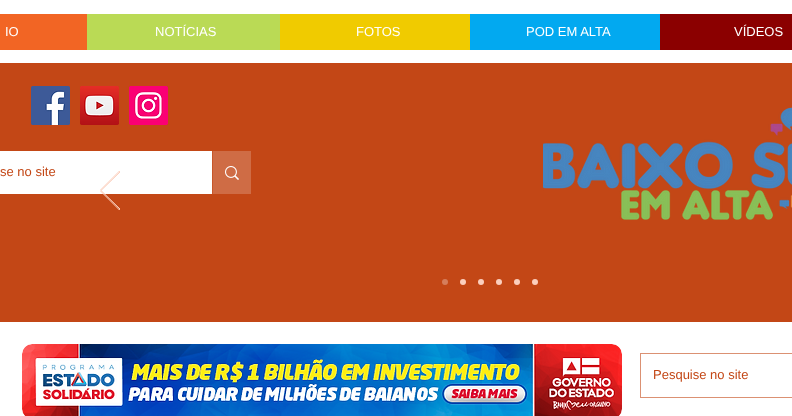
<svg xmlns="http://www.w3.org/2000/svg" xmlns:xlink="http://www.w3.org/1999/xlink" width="792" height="416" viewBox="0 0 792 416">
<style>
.cls-1{font:13px Liberation Sans;fill:#ffffff}
.cls-2{font:13px Liberation Sans;fill:#c34716}
</style>
<defs>
<clipPath id="clip1"><rect x="100" y="171" width="20" height="40"/></clipPath>
</defs>
<rect width="100%" height="100%" fill="#ffffff"/>
<rect fill="#f26524" x="0" y="14" width="87" height="36"/>
<rect fill="#bada55" x="87" y="14" width="193" height="36"/>
<rect fill="#f0cb00" x="280" y="14" width="190" height="36"/>
<rect fill="#02a9f0" x="470" y="14" width="190" height="36"/>
<rect fill="#8b0000" x="660" y="14" width="132" height="36"/>
<rect fill="#c34716" x="0" y="63" width="792" height="259"/>
<rect fill="#ffffff" x="0" y="151" width="212" height="43"/>
<rect fill="#cf6c45" x="213" y="151" width="38" height="43"/>
<rect fill="#c85629" x="212" y="151" width="1" height="43"/>
<image xlink:href="image0.png" x="225" y="166" width="14" height="14"/>
<image xlink:href="image1.png" x="31" y="86" width="39" height="39"/>
<image xlink:href="image2.png" x="80" y="86" width="39" height="39"/>
<image xlink:href="image3.png" x="129" y="86" width="39" height="39"/>
<image xlink:href="image4.png" x="543" y="107" width="249" height="113"/>
<g clip-path="url(#clip1)">
<path fill="none" stroke="#fbcfbd" d="M119.5 210L100 190.5L119.5 171L120 172L101 190.5L120 209Z"/>
</g>
<circle fill="#d57e5c" cx="445" cy="282" r="3"/>
<circle fill="#fbcfbd" cx="463" cy="282" r="3"/>
<circle fill="#fbcfbd" cx="481" cy="282" r="3"/>
<circle fill="#fbcfbd" cx="499" cy="282" r="3"/>
<circle fill="#fbcfbd" cx="517" cy="282" r="3"/>
<circle fill="#fbcfbd" cx="535" cy="282" r="3"/>
<image xlink:href="image5.png" x="22" y="344" width="600" height="72"/>
<rect fill="none" stroke="#db9173" x="640.5" y="353.5" width="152" height="44"/>
<text class="cls-1" x="5" y="36">IO</text>
<text class="cls-1" x="155" y="36">NOTÍCIAS</text>
<text class="cls-1" x="356" y="36">FOTOS</text>
<text class="cls-1" x="526" y="36">POD EM ALTA</text>
<text class="cls-1" x="734" y="36">VÍDEOS</text>
<text class="cls-2" x="0" y="176">se no site</text>
<text class="cls-2" x="653" y="379">Pesquise no site</text>
</svg>
